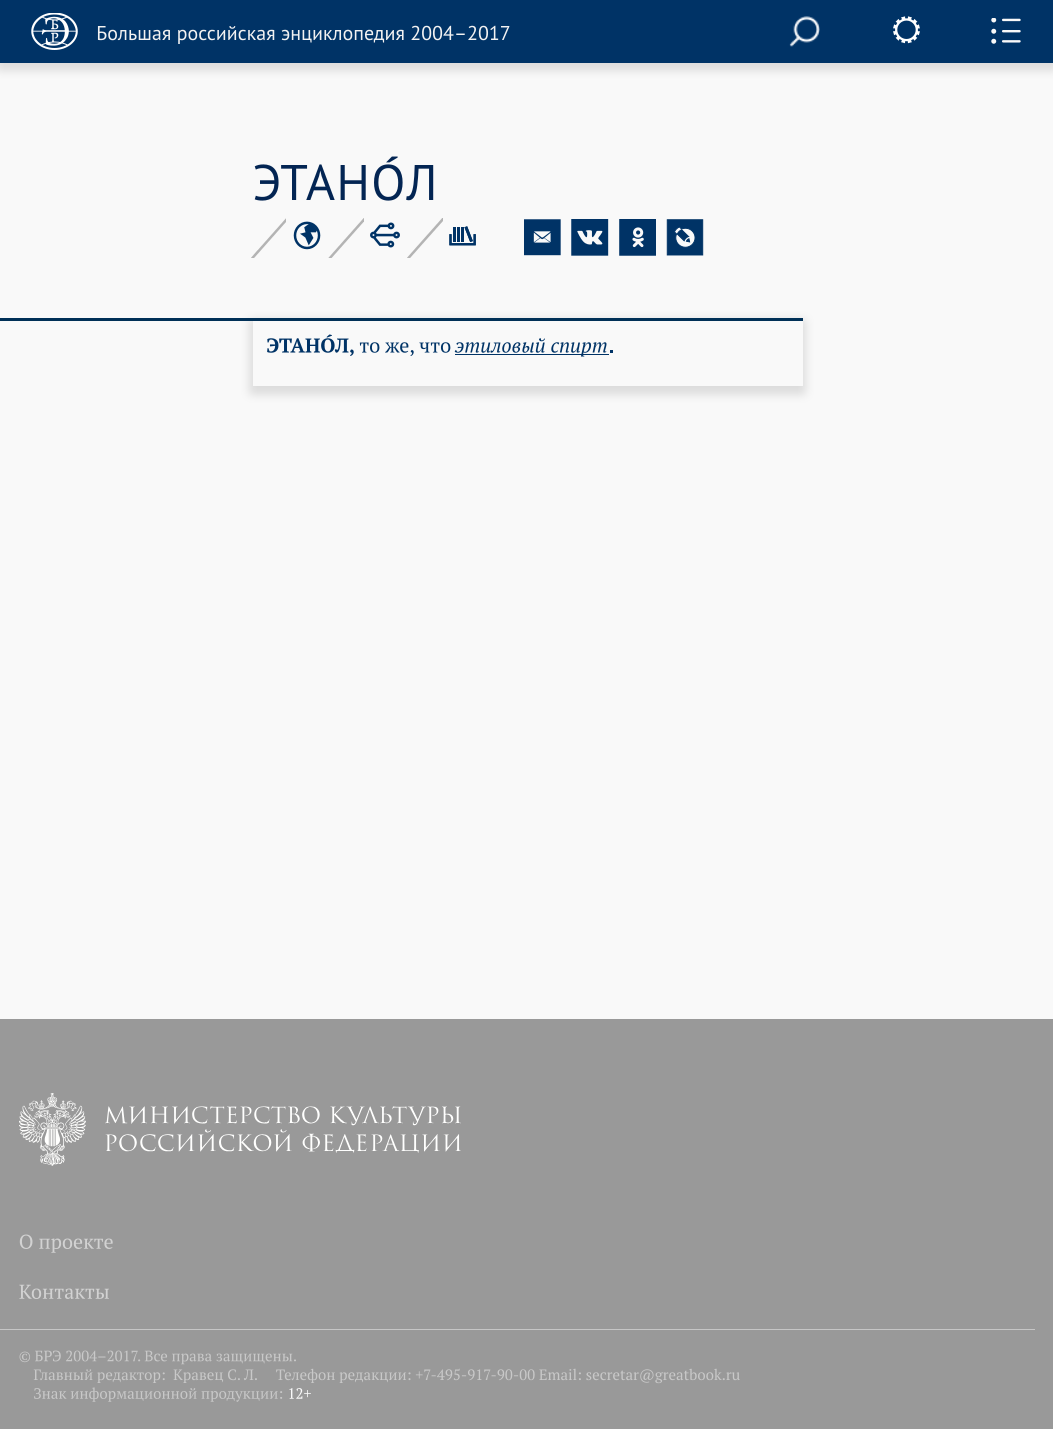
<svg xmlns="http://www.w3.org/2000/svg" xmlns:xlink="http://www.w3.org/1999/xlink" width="1053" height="1429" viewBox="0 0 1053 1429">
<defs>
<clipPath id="clip1"><rect x="250" y="218" width="36" height="40"/></clipPath>
<clipPath id="clip2"><rect x="328" y="218" width="36" height="40"/></clipPath>
<clipPath id="clip3"><rect x="406" y="218" width="37" height="40"/></clipPath>
<clipPath id="clip4"><path d="M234 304H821V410H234ZM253 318H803V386H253Z" clip-rule="evenodd"/></clipPath>
</defs>
<rect width="100%" height="100%" fill="#f9f9f9"/>
<rect fill="#000000" fill-opacity="0.11" filter="blur(4.5px)" x="-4" y="1" width="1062" height="70"/>
<image xlink:href="image0.png" x="254" y="156" width="180" height="45"/>
<g clip-path="url(#clip1)">
<path fill="none" stroke="#b4b4b4" stroke-width="2.5" stroke-linecap="square" d="M252 258.5L287 219"/>
</g>
<image xlink:href="image1.png" x="293" y="221" width="28" height="29"/>
<g clip-path="url(#clip2)">
<path fill="none" stroke="#b4b4b4" stroke-width="2.5" stroke-linecap="square" d="M329.5 258.5L364.5 219"/>
</g>
<image xlink:href="image2.png" x="370" y="222" width="30" height="26"/>
<g clip-path="url(#clip3)">
<path fill="none" stroke="#b4b4b4" stroke-width="2.5" stroke-linecap="square" d="M408 258.5L443 219"/>
</g>
<image xlink:href="image3.png" x="449" y="226" width="27" height="20"/>
<image xlink:href="image4.png" x="524" y="219" width="37" height="37"/>
<image xlink:href="image5.png" x="571" y="219" width="38" height="37"/>
<image xlink:href="image6.png" x="619" y="219" width="37" height="37"/>
<image xlink:href="image7.png" x="666" y="219" width="38" height="37"/>
<g clip-path="url(#clip4)">
<rect fill="#000000" fill-opacity="0.11" filter="blur(4.5px)" x="249" y="319" width="557" height="76"/>
</g>
<rect fill="#003057" x="0" y="318" width="803" height="3"/>
<image xlink:href="image8.png" x="267" y="334" width="87" height="22"/>
<image xlink:href="image9.png" x="359" y="342" width="92" height="14"/>
<rect fill="#003366" x="455" y="354" width="154" height="1"/>
<image xlink:href="image10.png" x="454" y="338" width="153" height="19"/>
<rect fill="#003366" x="610" y="350" width="3" height="3"/>
<rect fill="#003366" x="0" y="0" width="1053" height="63"/>
<image xlink:href="image11.png" x="31" y="13" width="47" height="37"/>
<image xlink:href="image12.png" x="97" y="25" width="413" height="19"/>
<image xlink:href="image13.png" x="789" y="16" width="31" height="31"/>
<image xlink:href="image14.png" x="893" y="16" width="27" height="28"/>
<image xlink:href="image15.png" x="991" y="18" width="30" height="26"/>
<rect fill="#999999" x="0" y="1019" width="1053" height="410"/>
<image xlink:href="image16.png" x="19" y="1093" width="67" height="73"/>
<image xlink:href="image17.png" x="105" y="1106" width="356" height="47"/>
<image xlink:href="image18.png" x="19" y="1234" width="94" height="19"/>
<image xlink:href="image19.png" x="19" y="1284" width="90" height="15"/>
<rect fill="#c6c6c6" x="0" y="1329" width="1035" height="1"/>
<image xlink:href="image20.png" x="19" y="1350" width="277" height="15"/>
<image xlink:href="image21.png" x="33" y="1369" width="224" height="14"/>
<image xlink:href="image22.png" x="276" y="1368" width="464" height="16"/>
<image xlink:href="image23.png" x="34" y="1387" width="249" height="15"/>
<image xlink:href="image24.png" x="289" y="1388" width="22" height="11"/>
</svg>
